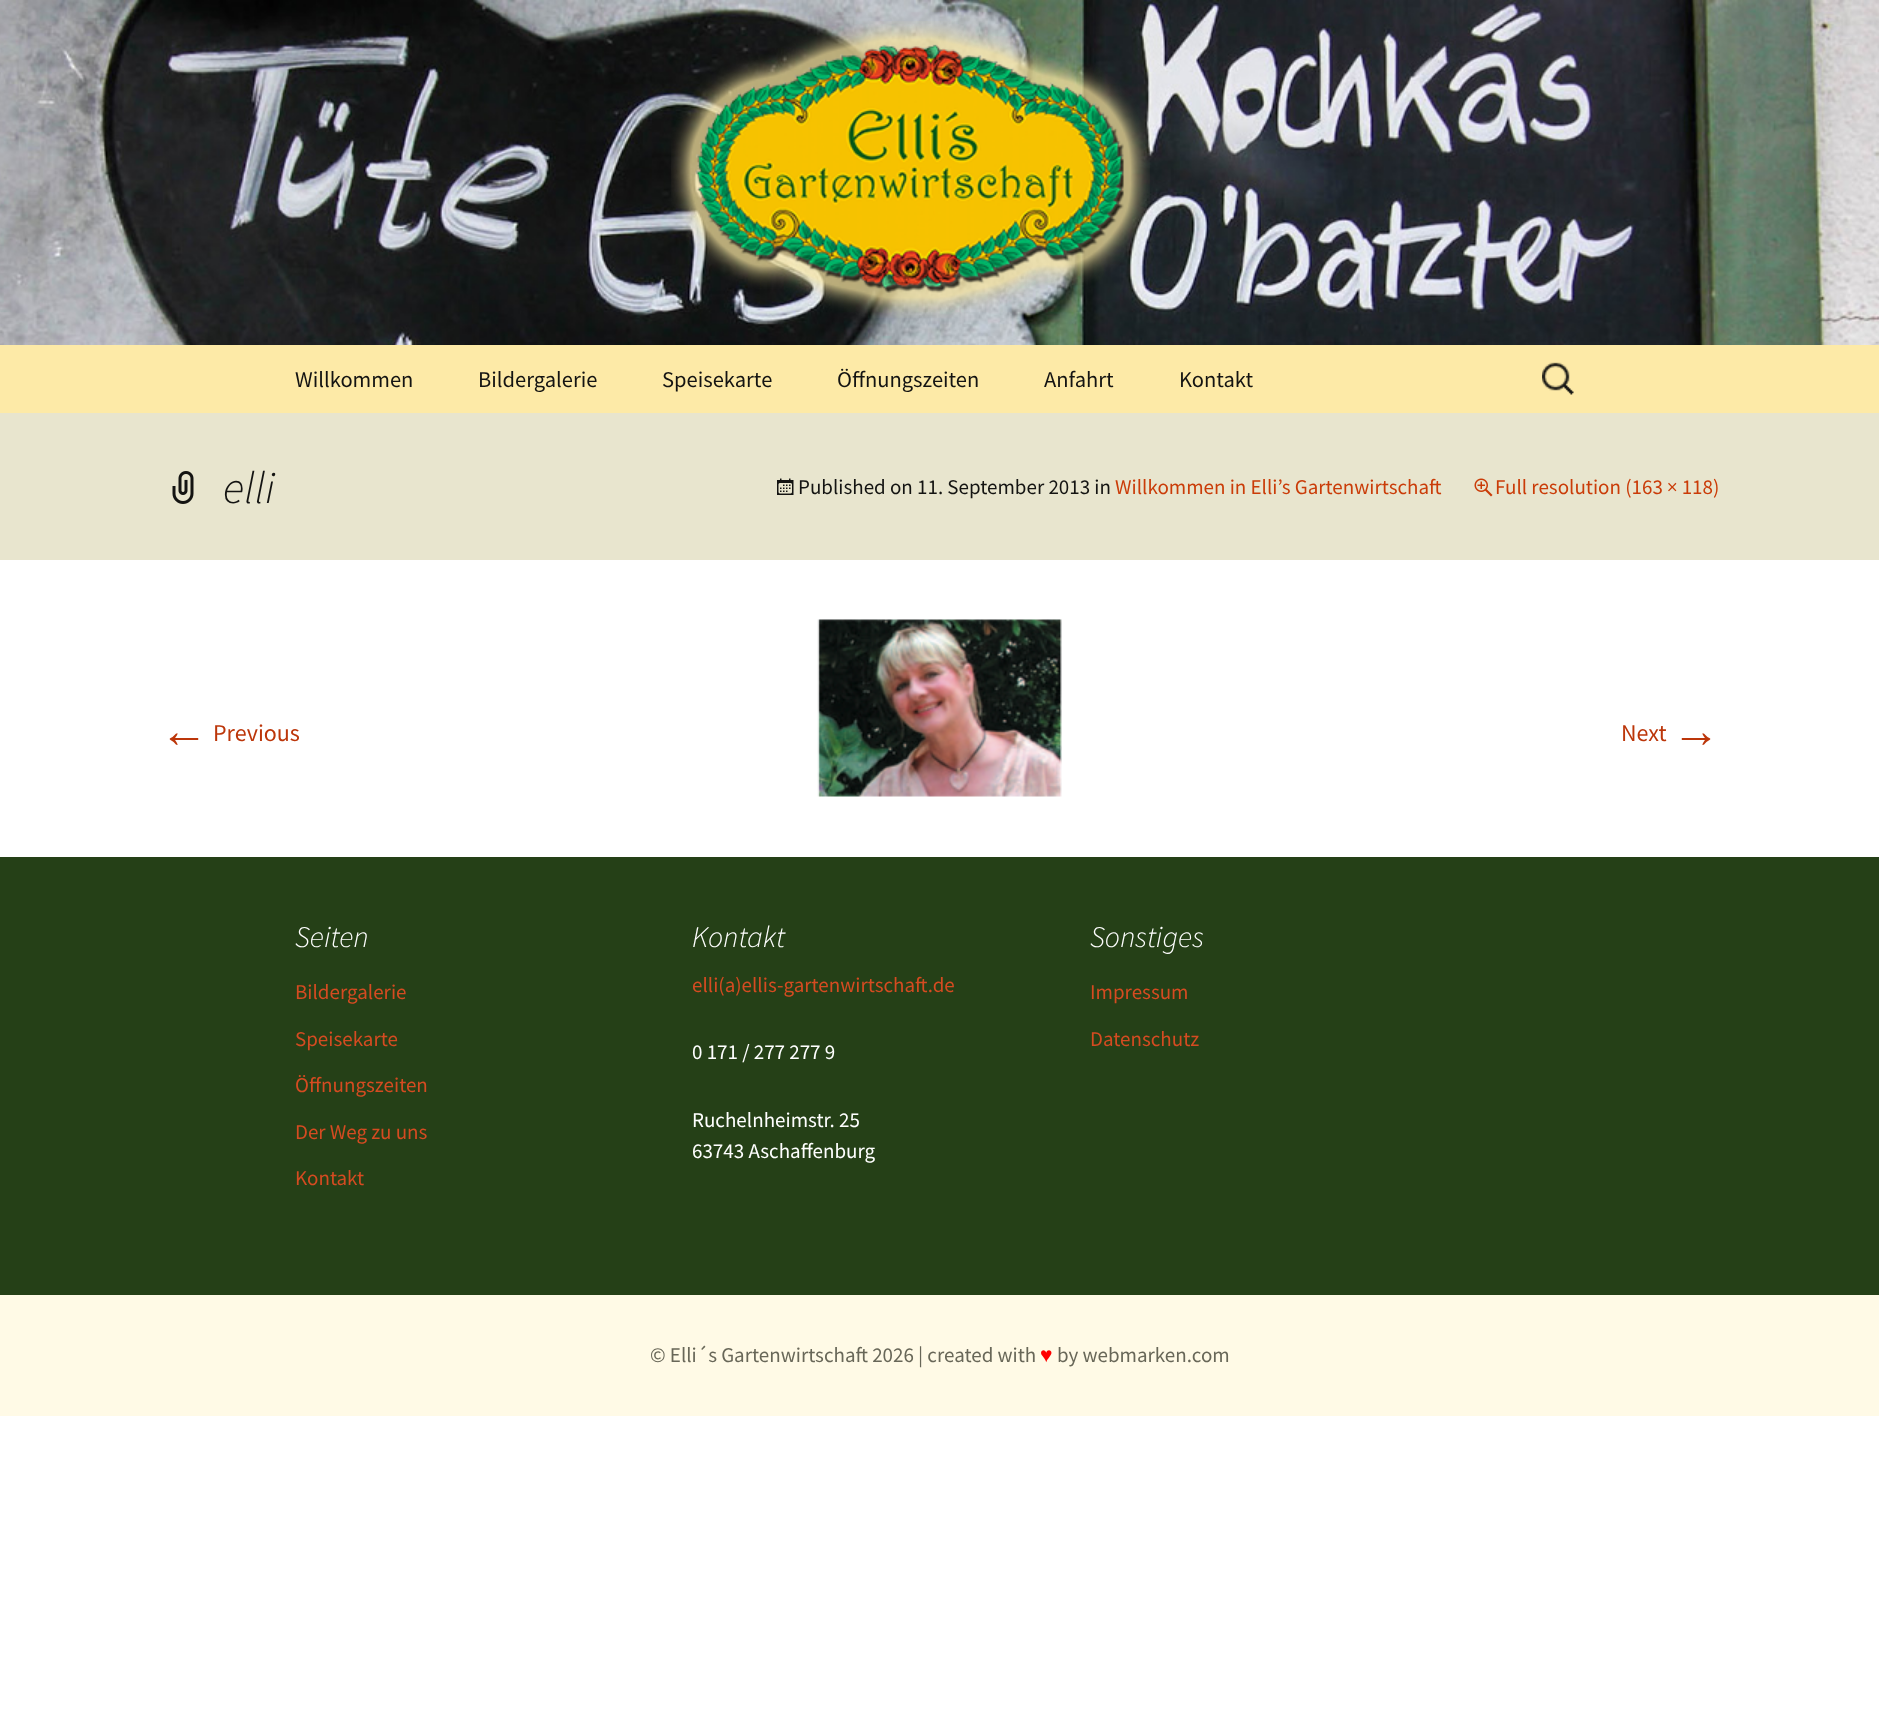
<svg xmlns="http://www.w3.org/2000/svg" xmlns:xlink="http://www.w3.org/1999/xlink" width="1879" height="1734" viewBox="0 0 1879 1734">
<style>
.cls-1{font:22.5px Source Sans Pro;fill:#141412}
.cls-2{font:italic 300 45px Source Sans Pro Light;fill:#141412}
.cls-3{font:21px Source Sans Pro;fill:#141412}
.cls-4{font:21px Source Sans Pro;fill:#ca3c08}
.cls-5{font:48px Liberation Sans;fill:#bc360a}
.cls-6{font:24px Source Sans Pro;fill:#bc360a}
.cls-7{font:italic 300 30px Source Sans Pro Light;fill:#ffffff}
.cls-8{font:21px Source Sans Pro;fill:#d54b21}
.cls-9{font:21px Source Sans Pro;fill:#ffffff}
.cls-10{font:21px Source Sans Pro;fill:#686758}
.cls-11{font:21px Liberation Sans;fill:#ff0000}
</style>
<rect width="100%" height="100%" fill="#ffffff"/>
<rect fill="#fffae6" x="0" y="1295" width="1879" height="121"/>
<image xlink:href="image0.png" x="0" y="0" width="1879" height="345"/>
<image xlink:href="image1.png" x="671" y="21" width="479" height="297"/>
<rect fill="#fdeaa7" x="0" y="345" width="1879" height="68"/>
<image xlink:href="image2.png" x="1542" y="362" width="32" height="33"/>
<rect fill="#e8e5ce" x="0" y="413" width="1879" height="147"/>
<image xlink:href="image3.png" x="172" y="471" width="22" height="33"/>
<image xlink:href="image4.png" x="777" y="478" width="17" height="17"/>
<image xlink:href="image5.png" x="1474" y="478" width="19" height="19"/>
<image xlink:href="image6.png" x="817" y="619" width="245" height="178"/>
<rect fill="#254017" x="0" y="857" width="1879" height="438"/>
<text class="cls-1" x="295" y="387">Willkommen</text>
<text class="cls-1" x="478" y="387">Bildergalerie</text>
<text class="cls-1" x="662" y="387">Speisekarte</text>
<text class="cls-1" x="837" y="387">Öffnungszeiten</text>
<text class="cls-1" x="1044" y="387">Anfahrt</text>
<text class="cls-1" x="1179" y="387">Kontakt</text>
<text class="cls-2" x="223" y="503">elli</text>
<text class="cls-3" x="798" y="494">Published on 11. September 2013 in</text>
<text class="cls-4" x="1115" y="494">Willkommen in Elli’s Gartenwirtschaft</text>
<text class="cls-4" x="1495" y="494">Full resolution (163 × 118)</text>
<text class="cls-5" x="160" y="747">←</text>
<text class="cls-6" x="213" y="741">Previous</text>
<text class="cls-6" x="1621" y="741">Next</text>
<text class="cls-5" x="1672" y="747">→</text>
<text class="cls-7" x="295" y="947">Seiten</text>
<text class="cls-8" x="295" y="999">Bildergalerie</text>
<text class="cls-8" x="295" y="1046">Speisekarte</text>
<text class="cls-8" x="295" y="1092">Öffnungszeiten</text>
<text class="cls-8" x="295" y="1139">Der Weg zu uns</text>
<text class="cls-8" x="295" y="1185">Kontakt</text>
<text class="cls-7" x="692" y="947">Kontakt</text>
<text class="cls-8" x="692" y="992">elli(a)ellis-gartenwirtschaft.de</text>
<text class="cls-9" x="692" y="1059">0 171 / 277 277 9</text>
<text class="cls-9"><tspan x="692" y="1127">Ruchelnheimstr. 25</tspan><tspan x="692" y="1158">63743 Aschaffenburg</tspan></text>
<text class="cls-7" x="1090" y="947">Sonstiges</text>
<text class="cls-8" x="1090" y="999">Impressum</text>
<text class="cls-8" x="1090" y="1046">Datenschutz</text>
<text class="cls-10" x="650" y="1362">© Elli´s Gartenwirtschaft 2026 | created with</text>
<text class="cls-11" x="1040" y="1362">♥</text>
<text class="cls-10" x="1057" y="1362">by webmarken.com</text>
</svg>
